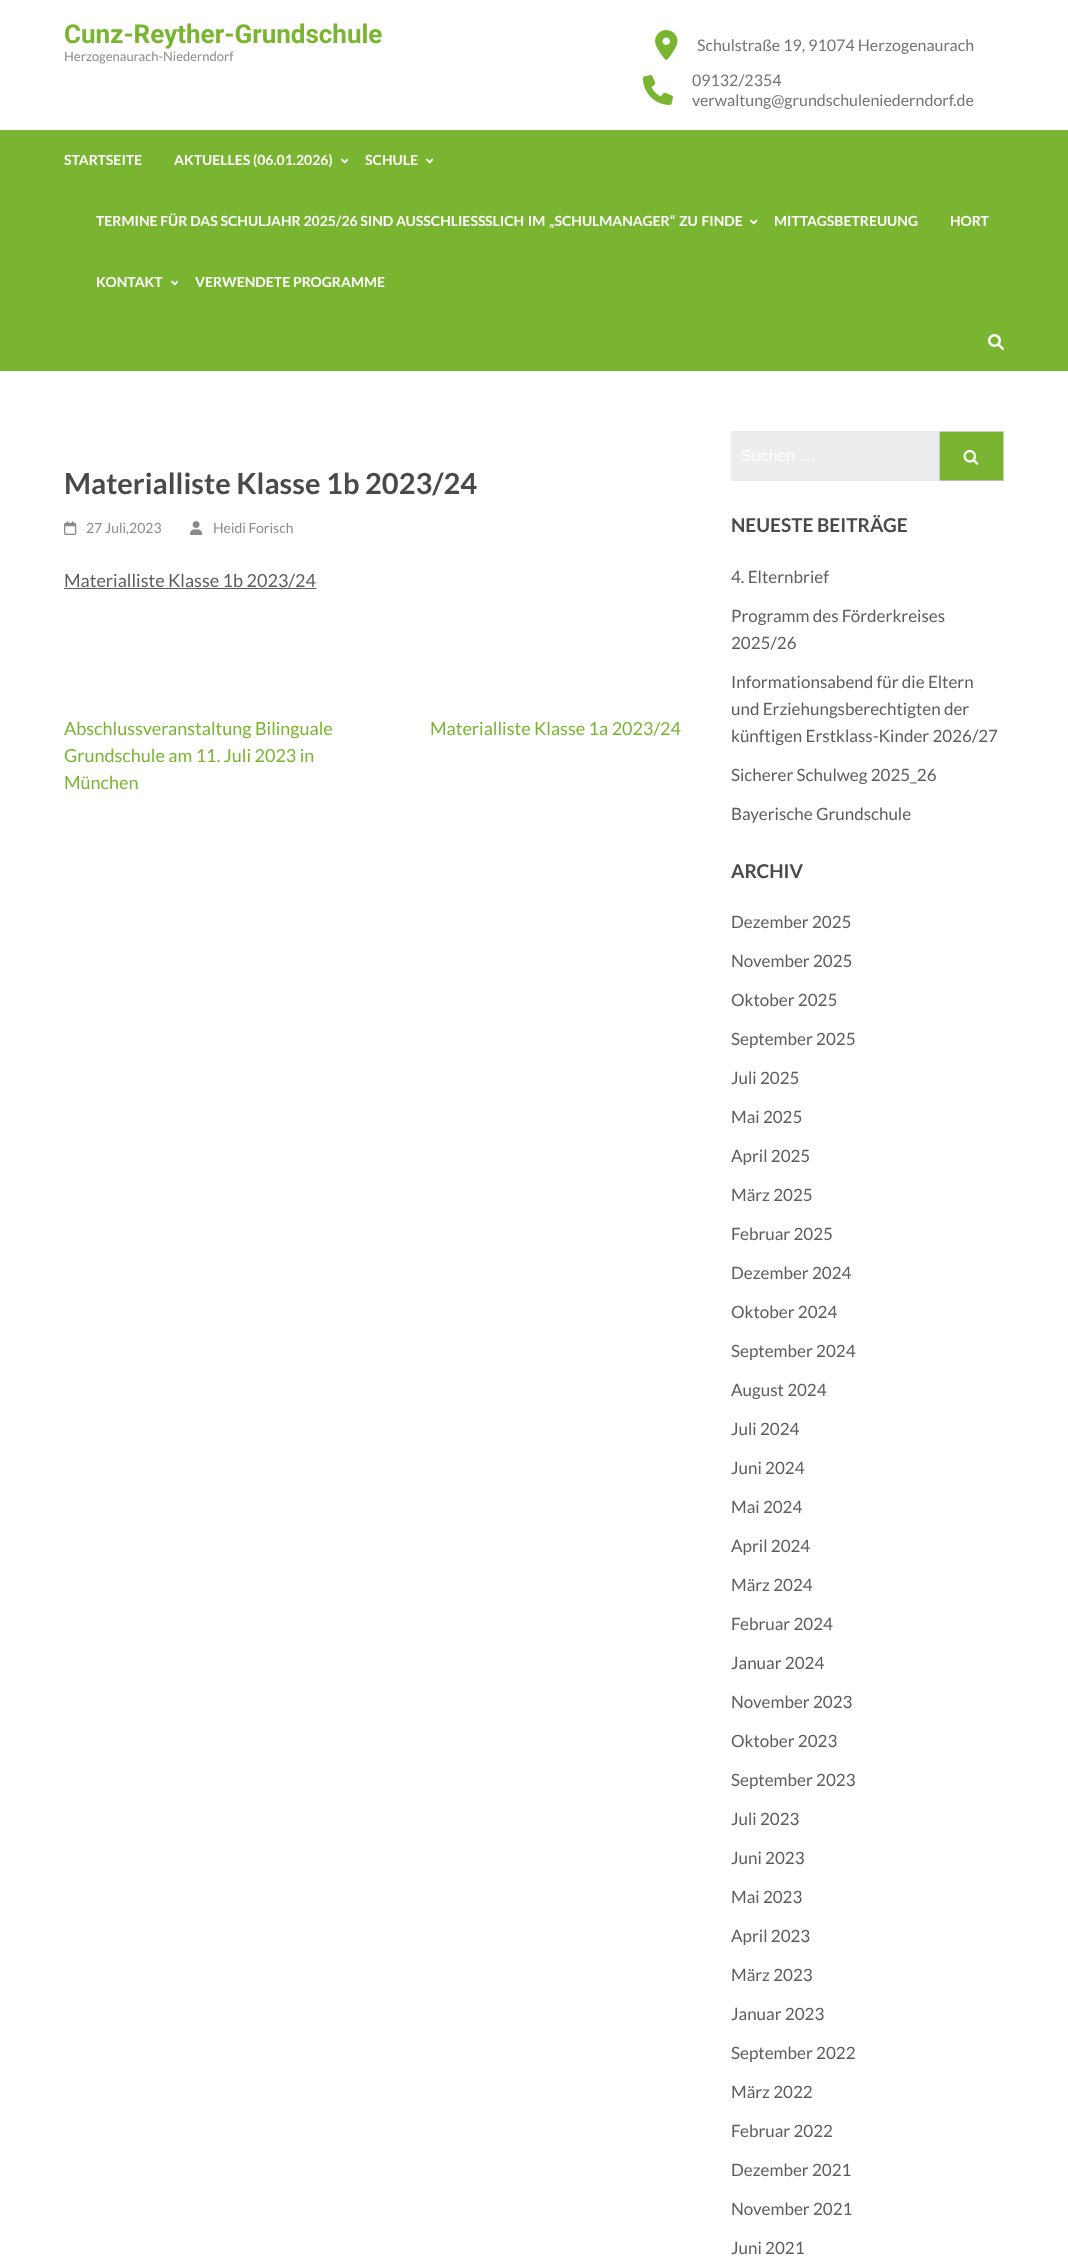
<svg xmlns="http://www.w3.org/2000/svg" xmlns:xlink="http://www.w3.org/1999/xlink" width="1068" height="2259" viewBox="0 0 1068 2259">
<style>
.cls-1{font:bold 26px Roboto;fill:#79b530}
.cls-2{font:13px Lato;fill:#8c8c8c}
.cls-3{font:16px Lato;fill:#747474}
.cls-4{font:bold 14px Lato;fill:#ffffff}
.cls-5{font:bold 29px Lato;fill:#474b4e}
.cls-6{font:14px Lato;fill:#8c8c8c}
.cls-7{font:18px Lato;fill:#5d5d5d}
.cls-8{font:18px Lato;fill:#79b530}
.cls-9{font:16px Liberation Sans;fill:#ffffff}
.cls-10{font:bold 19px Lato;fill:#474b4e}
.cls-11{font:17px Lato;fill:#5d5d5d}
</style>
<rect width="100%" height="100%" fill="#ffffff"/>
<image xlink:href="image0.png" x="655" y="30" width="23" height="30"/>
<image xlink:href="image1.png" x="643" y="75" width="30" height="30"/>
<rect fill="#79b530" x="0" y="130" width="1068" height="241"/>
<image xlink:href="image2.png" x="341" y="158" width="7" height="6"/>
<image xlink:href="image2.png" x="426" y="158" width="7" height="6"/>
<image xlink:href="image3.png" x="750" y="219" width="8" height="6"/>
<image xlink:href="image2.png" x="171" y="280" width="7" height="6"/>
<image xlink:href="image4.png" x="988" y="334" width="16" height="16"/>
<image xlink:href="image5.png" x="64" y="521" width="13" height="14"/>
<image xlink:href="image6.png" x="190" y="521" width="13" height="14"/>
<rect fill="#5d5d5d" x="64" y="588" width="252" height="1"/>
<rect fill="#ededed" x="731" y="431" width="208" height="50"/>
<rect fill="#79b530" x="940" y="432" width="63" height="48"/>
<image xlink:href="image7.png" x="963" y="450" width="16" height="15"/>
<rect fill="#cccccc" x="939" y="431" width="65" height="1"/>
<rect fill="#cccccc" x="1003" y="431" width="1" height="50"/>
<rect fill="#bbbbbb" x="939" y="480" width="65" height="1"/>
<rect fill="#cccccc" x="939" y="431" width="1" height="50"/>
<text class="cls-1" x="64" y="43">Cunz-Reyther-Grundschule</text>
<text class="cls-2" x="64" y="61">Herzogenaurach-Niederndorf</text>
<text class="cls-3" x="697" y="51">Schulstraße 19, 91074 Herzogenaurach</text>
<text class="cls-3"><tspan x="692" y="86">09132/2354</tspan><tspan x="692" y="106">verwaltung@grundschuleniederndorf.de</tspan></text>
<text class="cls-4" x="64" y="165">STARTSEITE</text>
<text class="cls-4" x="174" y="165">AKTUELLES (06.01.2026)</text>
<text class="cls-4" x="365" y="165">SCHULE</text>
<text class="cls-4" x="96" y="226">TERMINE FÜR DAS SCHULJAHR 2025/26 SIND AUSSCHLIESS</text>
<text class="cls-4" x="485" y="226" word-spacing="1">SLICH IM „SCHULMANAGER“ ZU FINDE</text>
<text class="cls-4" x="774" y="226">MITTAGSBETREUUNG</text>
<text class="cls-4" x="950" y="226">HORT</text>
<text class="cls-4" x="96" y="287">KONTAKT</text>
<text class="cls-4" x="195" y="287">VERWENDETE PROGRAMME</text>
<text class="cls-5" x="64" y="494">Materialliste Klasse 1b 2023/24</text>
<text class="cls-6" x="86" y="533">27 Juli,2023</text>
<text class="cls-6" x="213" y="533">Heidi Forisch</text>
<text class="cls-7" x="64" y="587">Materialliste Klasse 1b 2023/24</text>
<text class="cls-8"><tspan x="64" y="735">Abschlussveranstaltung Bilinguale</tspan><tspan x="64" y="762">Grundschule am 11. Juli 2023 in</tspan><tspan x="64" y="789">München</tspan></text>
<text class="cls-8" x="430" y="735">Materialliste Klasse 1a 2023/24</text>
<text class="cls-9" x="741" y="461">Suchen …</text>
<text class="cls-10" x="731" y="532">NEUESTE BEITRÄGE</text>
<text class="cls-11" x="731" y="583">4. Elternbrief</text>
<text class="cls-11"><tspan x="731" y="622">Programm des Förderkreises</tspan><tspan x="731" y="649">2025/26</tspan></text>
<text class="cls-11"><tspan x="731" y="688">Informationsabend für die Eltern</tspan><tspan x="731" y="715">und Erziehungsberechtigten der</tspan><tspan x="731" y="742">künftigen Erstklass-Kinder 2026/27</tspan></text>
<text class="cls-11" x="731" y="781">Sicherer Schulweg 2025_26</text>
<text class="cls-11" x="731" y="820">Bayerische Grundschule</text>
<text class="cls-10" x="731" y="878">ARCHIV</text>
<text class="cls-11" x="731" y="928">Dezember 2025</text>
<text class="cls-11" x="731" y="967">November 2025</text>
<text class="cls-11" x="731" y="1006">Oktober 2025</text>
<text class="cls-11" x="731" y="1045">September 2025</text>
<text class="cls-11" x="731" y="1084">Juli 2025</text>
<text class="cls-11" x="731" y="1123">Mai 2025</text>
<text class="cls-11" x="731" y="1162">April 2025</text>
<text class="cls-11" x="731" y="1201">März 2025</text>
<text class="cls-11" x="731" y="1240">Februar 2025</text>
<text class="cls-11" x="731" y="1279">Dezember 2024</text>
<text class="cls-11" x="731" y="1318">Oktober 2024</text>
<text class="cls-11" x="731" y="1357">September 2024</text>
<text class="cls-11" x="731" y="1396">August 2024</text>
<text class="cls-11" x="731" y="1435">Juli 2024</text>
<text class="cls-11" x="731" y="1474">Juni 2024</text>
<text class="cls-11" x="731" y="1513">Mai 2024</text>
<text class="cls-11" x="731" y="1552">April 2024</text>
<text class="cls-11" x="731" y="1591">März 2024</text>
<text class="cls-11" x="731" y="1630">Februar 2024</text>
<text class="cls-11" x="731" y="1669">Januar 2024</text>
<text class="cls-11" x="731" y="1708">November 2023</text>
<text class="cls-11" x="731" y="1747">Oktober 2023</text>
<text class="cls-11" x="731" y="1786">September 2023</text>
<text class="cls-11" x="731" y="1825">Juli 2023</text>
<text class="cls-11" x="731" y="1864">Juni 2023</text>
<text class="cls-11" x="731" y="1903">Mai 2023</text>
<text class="cls-11" x="731" y="1942">April 2023</text>
<text class="cls-11" x="731" y="1981">März 2023</text>
<text class="cls-11" x="731" y="2020">Januar 2023</text>
<text class="cls-11" x="731" y="2059">September 2022</text>
<text class="cls-11" x="731" y="2098">März 2022</text>
<text class="cls-11" x="731" y="2137">Februar 2022</text>
<text class="cls-11" x="731" y="2176">Dezember 2021</text>
<text class="cls-11" x="731" y="2215">November 2021</text>
<text class="cls-11" x="731" y="2254">Juni 2021</text>
</svg>
